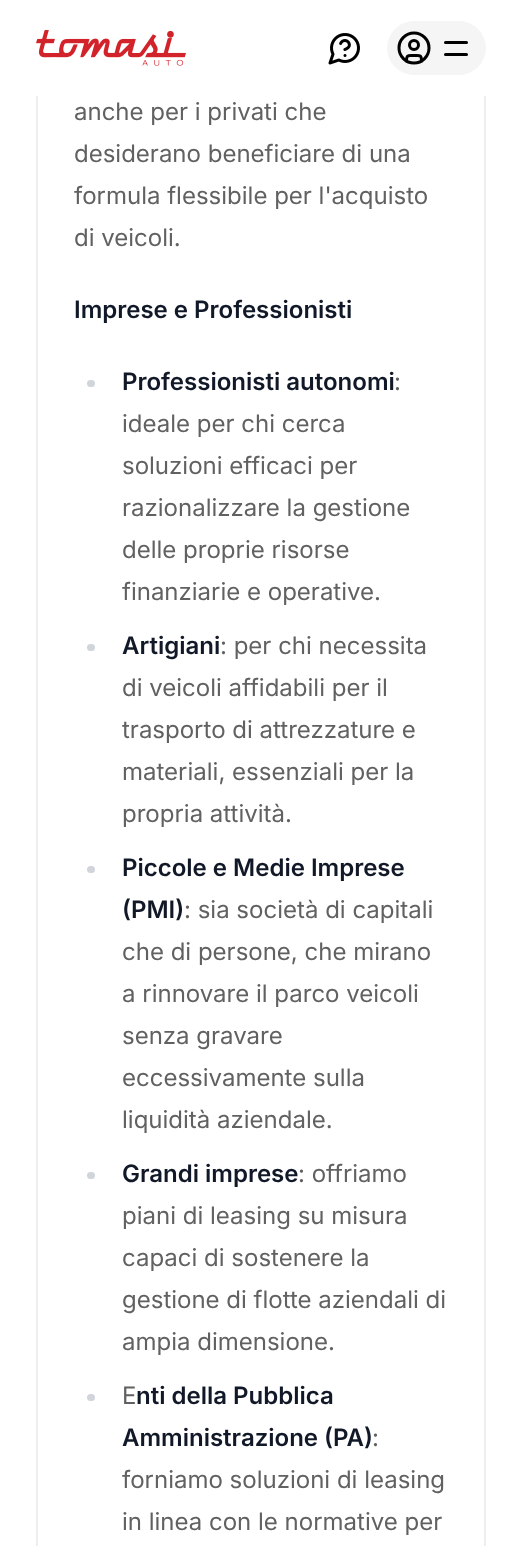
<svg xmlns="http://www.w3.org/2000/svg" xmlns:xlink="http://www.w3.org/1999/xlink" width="521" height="1546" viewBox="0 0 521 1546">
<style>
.cls-1{font:24px Inter;fill:#616161}
.cls-2{font:600 24px Inter;fill:#111827}
</style>
<rect width="100%" height="100%" fill="#ffffff"/>
<rect fill="none" stroke="#eeeeee" stroke-width="2" x="37" y="-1" width="448" height="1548"/>
<rect fill="#ffffff" x="36" y="0" width="450" height="96"/>
<image xlink:href="image0.png" x="36" y="30" width="150" height="36"/>
<image xlink:href="image1.png" x="328" y="33" width="32" height="32"/>
<rect fill="#f5f5f5" x="387" y="21" width="99" height="54" rx="27"/>
<circle fill="none" stroke="#000000" stroke-width="3" cx="414" cy="48" r="15"/>
<circle fill="none" stroke="#000000" stroke-width="3" cx="414" cy="45" r="4.5"/>
<path fill="none" stroke="#000000" stroke-width="3" stroke-linecap="round" stroke-linejoin="round" d="M406.5 61C406.5 54.5 408 55.5 414 55.5C420 55.5 421.5 54.5 421.5 61"/>
<rect fill="#000000" x="444" y="41" width="24" height="3" rx="1.5"/>
<rect fill="#000000" x="444" y="53" width="24" height="3" rx="1.5"/>
<rect fill="#d1d5db" x="87" y="380" width="8" height="7" rx="3.5"/>
<rect fill="#d1d5db" x="87" y="644" width="8" height="7" rx="3.5"/>
<rect fill="#d1d5db" x="87" y="866" width="8" height="7" rx="3.5"/>
<rect fill="#d1d5db" x="87" y="1172" width="8" height="7" rx="3.5"/>
<rect fill="#d1d5db" x="87" y="1394" width="8" height="7" rx="3.5"/>
<text class="cls-1"><tspan x="74" y="120">anche per i privati che</tspan><tspan x="74" y="162">desiderano beneficiare di una</tspan><tspan x="74" y="204">formula flessibile per l'acquisto</tspan><tspan x="74" y="246">di veicoli.</tspan></text>
<text class="cls-2" x="74" y="318">Imprese e Professionisti</text>
<text class="cls-2" x="122" y="390">Professionisti autonomi</text>
<text class="cls-1" x="394" y="390">:</text>
<text class="cls-1"><tspan x="122" y="432">ideale per chi cerca</tspan><tspan x="122" y="474">soluzioni efficaci per</tspan><tspan x="122" y="516">razionalizzare la gestione</tspan><tspan x="122" y="558">delle proprie risorse</tspan><tspan x="122" y="600">finanziarie e operative.</tspan></text>
<text class="cls-2" x="122" y="654">Artigiani</text>
<text class="cls-1" x="220" y="654">: per chi necessita</text>
<text class="cls-1"><tspan x="122" y="696">di veicoli affidabili per il</tspan><tspan x="122" y="738">trasporto di attrezzature e</tspan><tspan x="122" y="780">materiali, essenziali per la</tspan><tspan x="122" y="822">propria attività.</tspan></text>
<text class="cls-2"><tspan x="122" y="876">Piccole e Medie Imprese</tspan><tspan x="122" y="918">(PMI)</tspan></text>
<text class="cls-1" x="184" y="918">: sia società di capitali</text>
<text class="cls-1"><tspan x="122" y="960">che di persone, che mirano</tspan><tspan x="122" y="1002">a rinnovare il parco veicoli</tspan><tspan x="122" y="1044">senza gravare</tspan><tspan x="122" y="1086">eccessivamente sulla</tspan><tspan x="122" y="1128">liquidità aziendale.</tspan></text>
<text class="cls-2" x="122" y="1182">Grandi imprese</text>
<text class="cls-1" x="298" y="1182">: offriamo</text>
<text class="cls-1"><tspan x="122" y="1224">piani di leasing su misura</tspan><tspan x="122" y="1266">capaci di sostenere la</tspan><tspan x="122" y="1308">gestione di flotte aziendali di</tspan><tspan x="122" y="1350">ampia dimensione.</tspan></text>
<text class="cls-1" x="122" y="1404">E</text>
<text class="cls-2" x="136" y="1404">nti della Pubblica</text>
<text class="cls-2" x="122" y="1446">Amministrazione (PA)</text>
<text class="cls-1" x="372" y="1446">:</text>
<text class="cls-1"><tspan x="122" y="1488">forniamo soluzioni di leasing</tspan><tspan x="122" y="1530">in linea con le normative per</tspan></text>
</svg>
